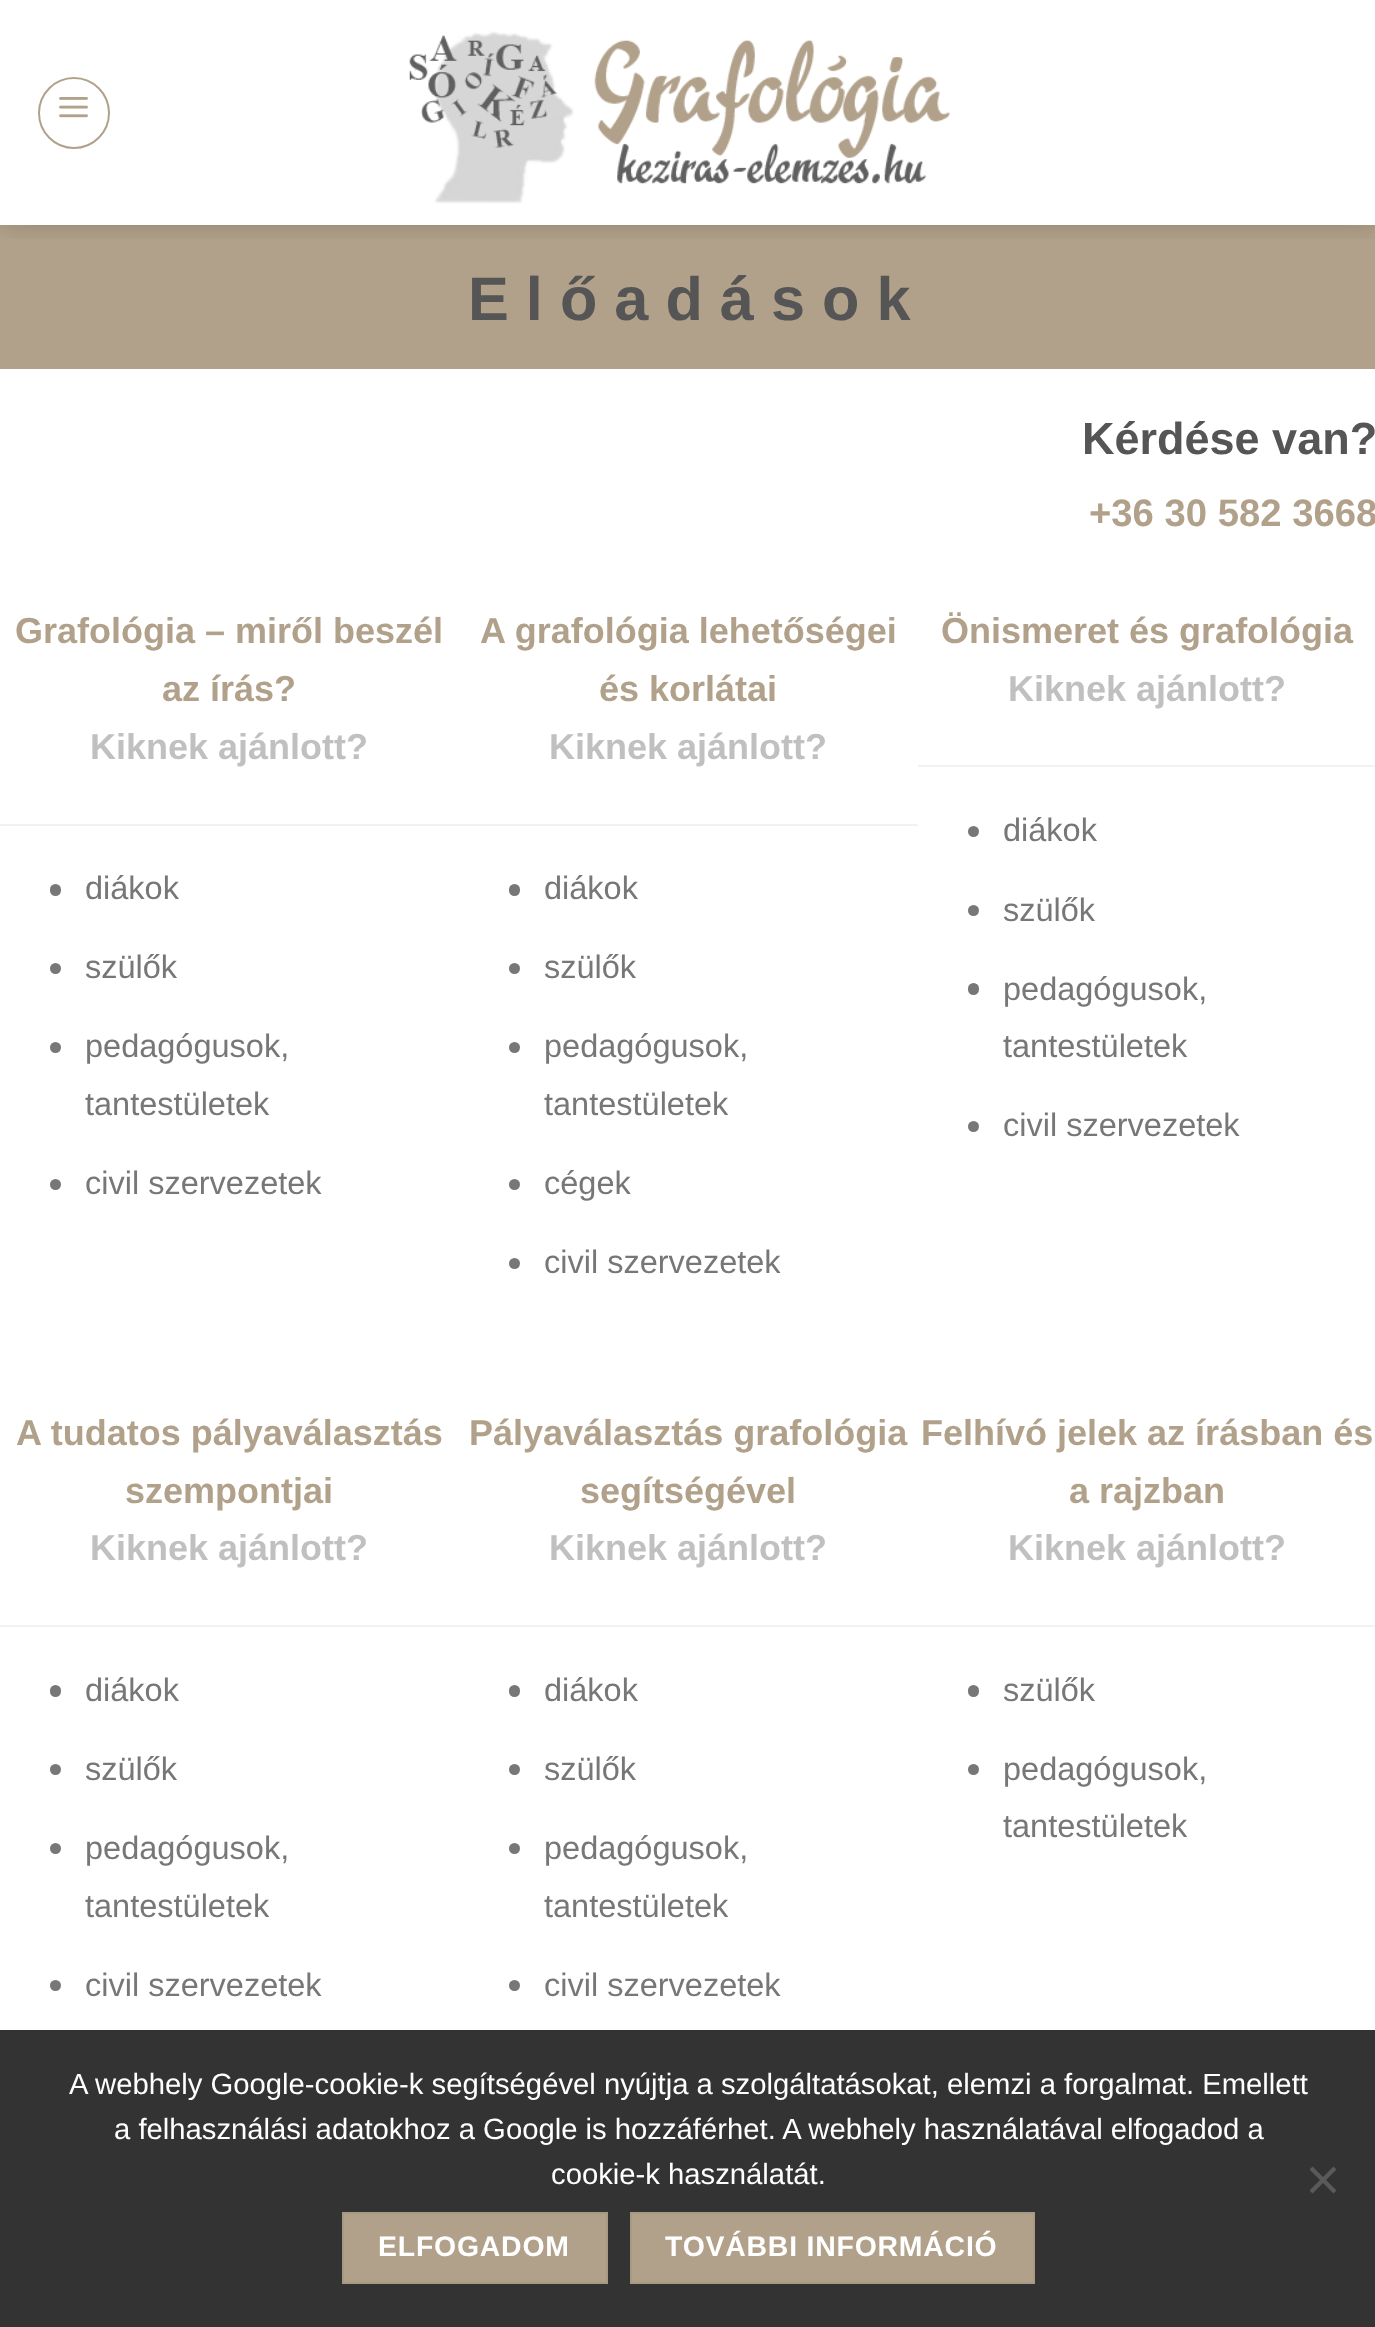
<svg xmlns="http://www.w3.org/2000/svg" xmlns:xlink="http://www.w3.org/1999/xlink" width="1375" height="2327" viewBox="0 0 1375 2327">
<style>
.cls-1{font:bold 61.25px Liberation Sans;fill:#555555}
.cls-2{font:bold 45px Liberation Sans;fill:#555555}
.cls-3{font:bold 38.25px Liberation Sans;fill:#b1a18a}
.cls-4{font:bold 36px Liberation Sans;fill:#b1a18a}
.cls-5{font:bold 36px Liberation Sans;fill:#c0c0c0}
.cls-6{font:32.5px Liberation Sans;fill:#777777}
.cls-7{font:29.25px Liberation Sans;fill:#ffffff}
.cls-8{font:bold 28.4px Liberation Sans;letter-spacing:0.8px;fill:#ffffff}
</style>
<defs>
<clipPath id="clip1"><rect x="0" y="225" width="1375" height="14"/></clipPath>
</defs>
<rect width="100%" height="100%" fill="#ffffff"/>
<rect fill="#b1a18a" x="0" y="225" width="1375" height="144"/>
<g clip-path="url(#clip1)">
<rect fill="#000000" fill-opacity="0.15" filter="blur(11px)" x="2" y="2" width="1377" height="225"/>
</g>
<circle fill="none" stroke="#b1a18a" stroke-width="2" cx="74" cy="113" r="35"/>
<image xlink:href="image0.png" x="59" y="97" width="29" height="21"/>
<image xlink:href="image1.png" x="409" y="31" width="541" height="173"/>
<rect fill="#9e917e" x="34" y="225" width="1309" height="2"/>
<rect fill="#f2f2f2" x="0" y="824" width="918" height="2"/>
<rect fill="#777777" x="50" y="884" width="11" height="12" rx="5.5"/>
<circle fill="#777777" cx="55.5" cy="968.5" r="5.5"/>
<circle fill="#777777" cx="55.5" cy="1047.5" r="5.5"/>
<circle fill="#777777" cx="55.5" cy="1184.5" r="5.5"/>
<rect fill="#777777" x="509" y="884" width="11" height="12" rx="5.5"/>
<circle fill="#777777" cx="514.5" cy="968.5" r="5.5"/>
<circle fill="#777777" cx="514.5" cy="1047.5" r="5.5"/>
<circle fill="#777777" cx="514.5" cy="1184.5" r="5.5"/>
<circle fill="#777777" cx="514.5" cy="1263.5" r="5.5"/>
<rect fill="#f2f2f2" x="918" y="765" width="457" height="2"/>
<circle fill="#777777" cx="973.5" cy="831.5" r="5.5"/>
<circle fill="#777777" cx="973.5" cy="910.5" r="5.5"/>
<rect fill="#777777" x="968" y="983" width="11" height="12" rx="5.5"/>
<circle fill="#777777" cx="973.5" cy="1126.5" r="5.5"/>
<rect fill="#f2f2f2" x="0" y="1625" width="1375" height="2"/>
<rect fill="#777777" x="50" y="1685" width="11" height="12" rx="5.5"/>
<circle fill="#777777" cx="55.5" cy="1769.5" r="5.5"/>
<circle fill="#777777" cx="55.5" cy="1848.5" r="5.5"/>
<circle fill="#777777" cx="55.5" cy="1985.5" r="5.5"/>
<rect fill="#777777" x="509" y="1685" width="11" height="12" rx="5.5"/>
<circle fill="#777777" cx="514.5" cy="1769.5" r="5.5"/>
<circle fill="#777777" cx="514.5" cy="1848.5" r="5.5"/>
<circle fill="#777777" cx="514.5" cy="1985.5" r="5.5"/>
<rect fill="#777777" x="968" y="1685" width="11" height="12" rx="5.5"/>
<circle fill="#777777" cx="973.5" cy="1769.5" r="5.5"/>
<rect fill="#333333" x="0" y="2030" width="1375" height="297"/>
<path fill="#5a5a5a" d="M1333.5 2166.5L1336.5 2169.5L1312.5 2193.5L1309.5 2190.5Z"/>
<path fill="#5a5a5a" d="M1309.5 2169.5L1312.5 2166.5L1336.5 2190.5L1333.5 2193.5Z"/>
<rect fill="#b1a18a" stroke="#a89983" stroke-width="2" x="343" y="2213" width="264" height="70"/>
<rect fill="#b1a18a" stroke="#a89983" stroke-width="2" x="631" y="2213" width="403" height="70"/>
<text class="cls-1" x="468" y="320">E l ő a d á s o k</text>
<text class="cls-2" x="1082" y="454">Kérdése van?</text>
<text class="cls-3" x="1089" y="526">+36 30 582 3668</text>
<text class="cls-4" x="15" y="643">Grafológia – miről beszél</text>
<text class="cls-4" x="162" y="701">az írás?</text>
<text class="cls-5" x="90" y="759">Kiknek ajánlott?</text>
<text class="cls-6" x="85" y="899">diákok</text>
<text class="cls-6" x="85" y="978">szülők</text>
<text class="cls-6"><tspan x="85" y="1057">pedagógusok,</tspan><tspan x="85" y="1115">tantestületek</tspan></text>
<text class="cls-6" x="85" y="1194">civil szervezetek</text>
<text class="cls-4" x="480" y="643">A grafológia lehetőségei</text>
<text class="cls-4" x="599" y="701">és korlátai</text>
<text class="cls-5" x="549" y="759">Kiknek ajánlott?</text>
<text class="cls-6" x="544" y="899">diákok</text>
<text class="cls-6" x="544" y="978">szülők</text>
<text class="cls-6"><tspan x="544" y="1057">pedagógusok,</tspan><tspan x="544" y="1115">tantestületek</tspan></text>
<text class="cls-6" x="544" y="1194">cégek</text>
<text class="cls-6" x="544" y="1273">civil szervezetek</text>
<text class="cls-4" x="941" y="643">Önismeret és grafológia</text>
<text class="cls-5" x="1008" y="701">Kiknek ajánlott?</text>
<text class="cls-6" x="1003" y="841">diákok</text>
<text class="cls-6" x="1003" y="921">szülők</text>
<text class="cls-6"><tspan x="1003" y="1000">pedagógusok,</tspan><tspan x="1003" y="1057">tantestületek</tspan></text>
<text class="cls-6" x="1003" y="1136">civil szervezetek</text>
<text class="cls-4" x="16" y="1445">A tudatos pályaválasztás</text>
<text class="cls-4" x="125" y="1503">szempontjai</text>
<text class="cls-5" x="90" y="1560">Kiknek ajánlott?</text>
<text class="cls-6" x="85" y="1701">diákok</text>
<text class="cls-6" x="85" y="1780">szülők</text>
<text class="cls-6"><tspan x="85" y="1859">pedagógusok,</tspan><tspan x="85" y="1917">tantestületek</tspan></text>
<text class="cls-6" x="85" y="1996">civil szervezetek</text>
<text class="cls-4" x="469" y="1445">Pályaválasztás grafológia</text>
<text class="cls-4" x="580" y="1503">segítségével</text>
<text class="cls-5" x="549" y="1560">Kiknek ajánlott?</text>
<text class="cls-6" x="544" y="1701">diákok</text>
<text class="cls-6" x="544" y="1780">szülők</text>
<text class="cls-6"><tspan x="544" y="1859">pedagógusok,</tspan><tspan x="544" y="1917">tantestületek</tspan></text>
<text class="cls-6" x="544" y="1996">civil szervezetek</text>
<text class="cls-4" x="921" y="1445">Felhívó jelek az írásban és</text>
<text class="cls-4" x="1069" y="1503">a rajzban</text>
<text class="cls-5" x="1008" y="1560">Kiknek ajánlott?</text>
<text class="cls-6" x="1003" y="1701">szülők</text>
<text class="cls-6"><tspan x="1003" y="1780">pedagógusok,</tspan><tspan x="1003" y="1837">tantestületek</tspan></text>
<text class="cls-7" x="69" y="2094">A webhely Google-cookie-k segítségével nyújtja a szolgáltatásokat, elemzi a forgalmat. Emellett</text>
<text class="cls-7" x="114" y="2139">a felhasználási adatokhoz a Google is hozzáférhet. A webhely használatával elfogadod a</text>
<text class="cls-7" x="551" y="2184">cookie-k használatát.</text>
<text class="cls-8" x="378" y="2256">ELFOGADOM</text>
<text class="cls-8" x="665" y="2256">TOVÁBBI INFORMÁCIÓ</text>
</svg>
